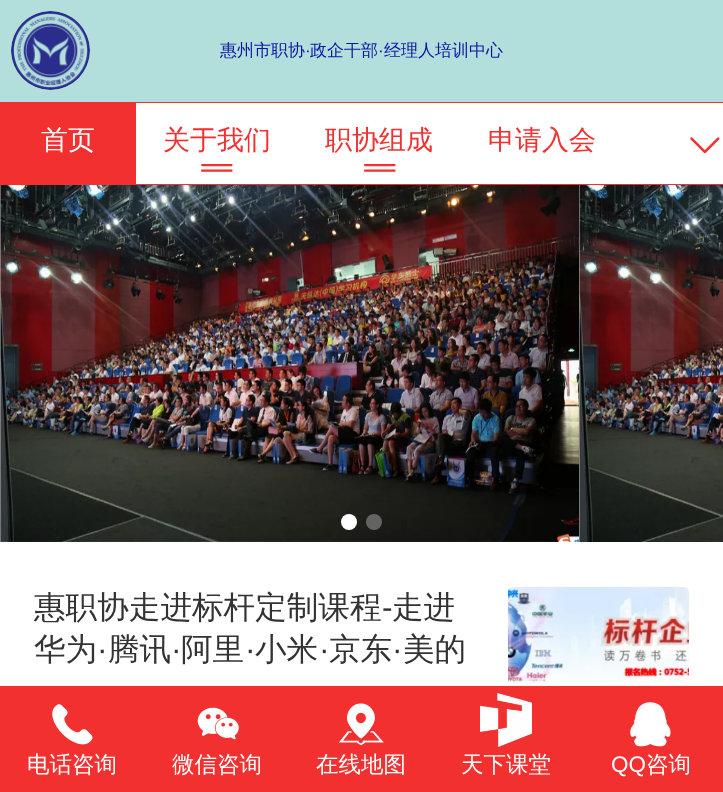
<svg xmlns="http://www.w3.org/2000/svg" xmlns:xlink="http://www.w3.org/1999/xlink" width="723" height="792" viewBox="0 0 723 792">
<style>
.cls-1{font:500 17px WenQuanYi Zen Hei;fill:#0c16a2}
.cls-2{font:17px Liberation Sans;fill:#0c16a2}
.cls-3{font:500 27px WenQuanYi Zen Hei;fill:#ffffff}
.cls-4{font:500 27px WenQuanYi Zen Hei;fill:#f23030}
.cls-5{font:31.6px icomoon;fill:#f23030}
.cls-6{font:500 31.6px WenQuanYi Zen Hei;fill:#333333}
.cls-7{font:31.6px Liberation Sans;fill:#333333}
.cls-8{font:500 22.5px WenQuanYi Zen Hei;fill:#ffffff}
.cls-9{font:22.5px Liberation Sans;fill:#ffffff}
</style>
<rect width="100%" height="100%" fill="#ffffff"/>
<rect fill="#b2dfdc" x="0" y="0" width="723" height="102"/>
<rect fill="#f23030" x="0" y="102" width="723" height="1"/>
<image xlink:href="image0.png" x="11" y="11" width="79" height="79"/>
<rect fill="#f23030" x="0" y="184" width="723" height="1"/>
<rect fill="#f23030" x="0" y="103" width="136" height="81"/>
<image xlink:href="image1.png" x="690" y="137" width="30" height="17"/>
<image xlink:href="image2.png" x="0" y="185" width="579" height="357"/>
<image xlink:href="image4.png" x="579" y="541" width="144" height="1"/>
<image xlink:href="image3.png" x="579" y="185" width="144" height="357"/>
<circle fill="#ffffff" cx="349" cy="522" r="8"/>
<circle fill="#ababab" fill-opacity="0.5" cx="374" cy="522" r="8"/>
<image xlink:href="image5.png" x="508" y="587" width="181" height="99"/>
<rect fill="#f23030" x="0" y="686" width="723" height="106"/>
<image xlink:href="image6.png" x="52" y="704" width="41" height="41"/>
<image xlink:href="image7.png" x="197" y="707" width="42" height="33"/>
<image xlink:href="image8.png" x="339" y="703" width="45" height="42"/>
<image xlink:href="image9.png" x="480" y="693" width="52" height="54"/>
<image xlink:href="image10.png" x="630" y="702" width="41" height="45"/>
<text class="cls-1" x="220" y="56">惠州市职协</text>
<text class="cls-2" x="305" y="56">·</text>
<text class="cls-1" x="310" y="56">政企干部</text>
<text class="cls-2" x="378" y="56">·</text>
<text class="cls-1" x="384" y="56">经理人培训中心</text>
<text class="cls-3" x="41" y="149">首页</text>
<text class="cls-4" x="163" y="149">关于我们</text>
<text class="cls-5" x="201" y="181">򰈴</text>
<text class="cls-4" x="325" y="149">职协组成</text>
<text class="cls-5" x="364" y="181">򰈴</text>
<text class="cls-4" x="488" y="149">申请入会</text>
<text class="cls-6" x="34" y="618">惠职协走进标杆定制课程</text>
<text class="cls-7" x="382" y="618">-</text>
<text class="cls-6" x="392" y="618">走进</text>
<text class="cls-6" x="34" y="660">华为</text>
<text class="cls-7" x="97" y="660">·</text>
<text class="cls-6" x="108" y="660">腾讯</text>
<text class="cls-7" x="171" y="660">·</text>
<text class="cls-6" x="181" y="660">阿里</text>
<text class="cls-7" x="245" y="660">·</text>
<text class="cls-6" x="255" y="660">小米</text>
<text class="cls-7" x="319" y="660">·</text>
<text class="cls-6" x="329" y="660">京东</text>
<text class="cls-7" x="392" y="660">·</text>
<text class="cls-6" x="403" y="660">美的</text>
<text class="cls-8" x="27" y="772">电话咨询</text>
<text class="cls-8" x="172" y="772">微信咨询</text>
<text class="cls-8" x="316" y="772">在线地图</text>
<text class="cls-8" x="461" y="772">天下课堂</text>
<text class="cls-9" x="611" y="772">QQ</text>
<text class="cls-8" x="646" y="772">咨询</text>
</svg>
